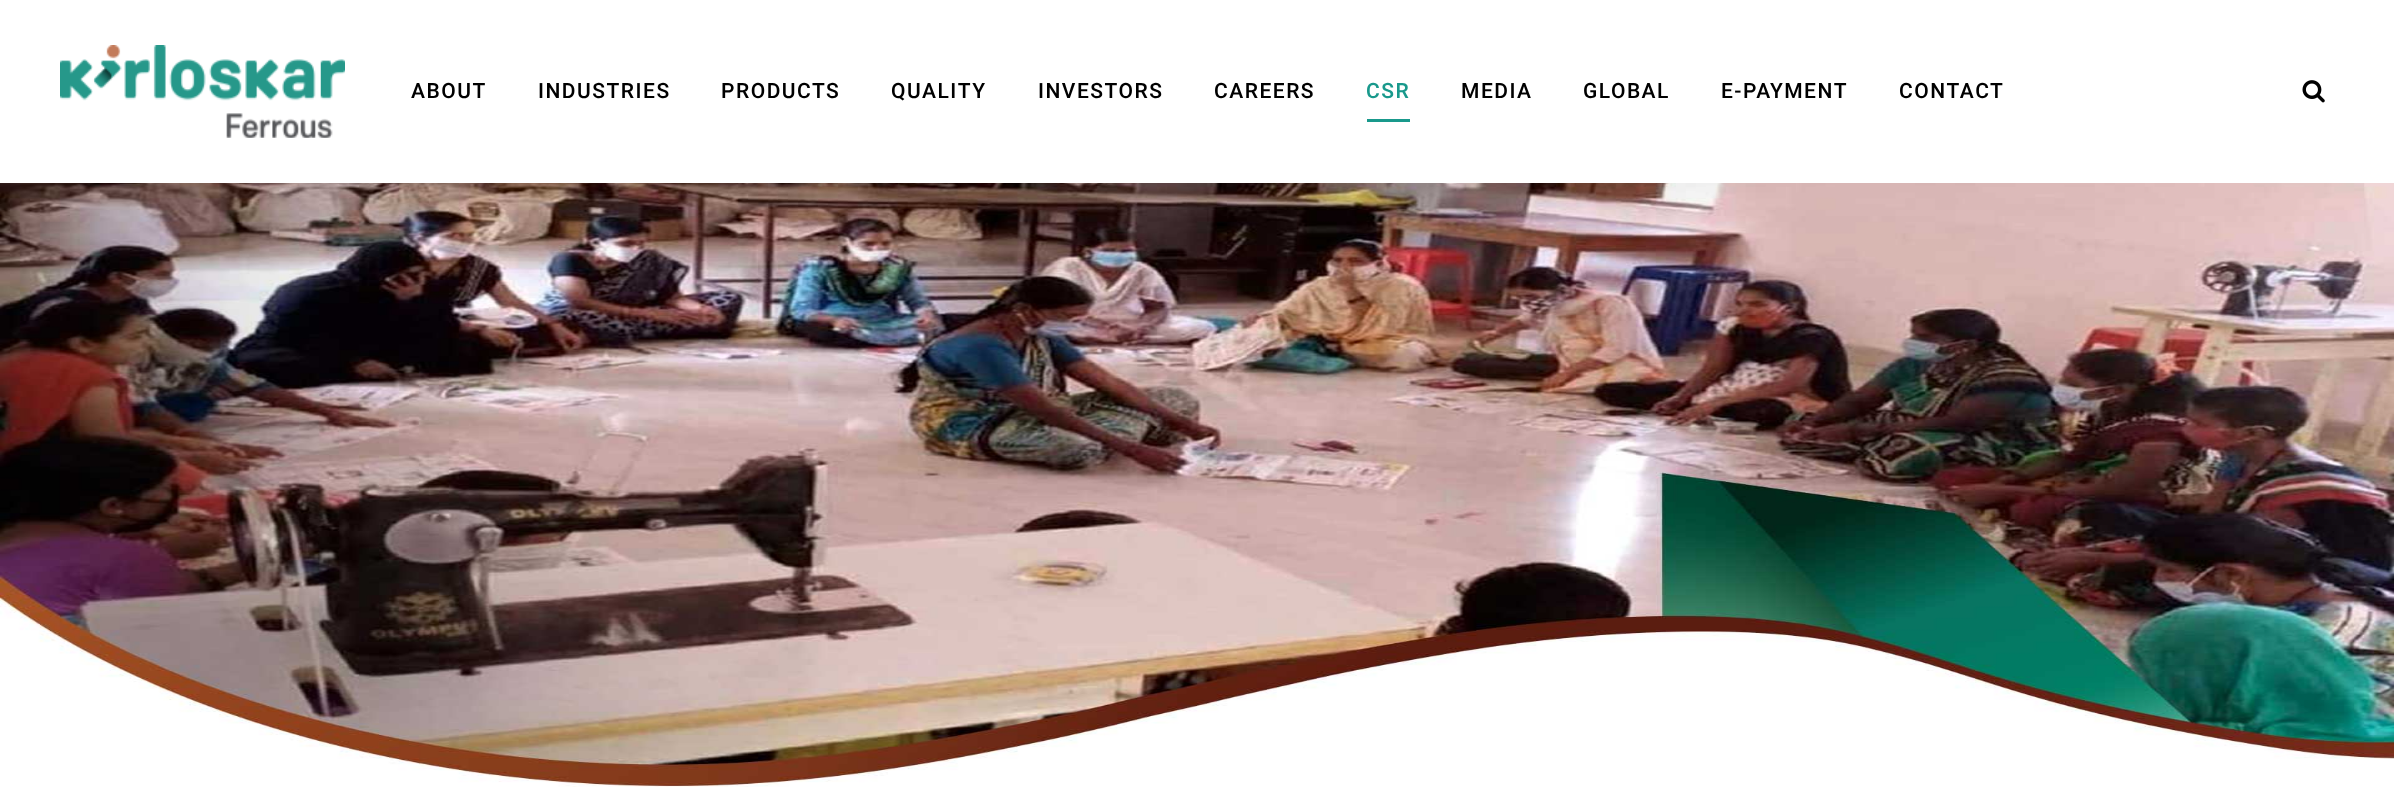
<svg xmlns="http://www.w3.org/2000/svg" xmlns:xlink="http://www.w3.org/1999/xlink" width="2394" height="787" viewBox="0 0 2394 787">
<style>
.cls-1{font:500 21px Heebo;letter-spacing:1.5px;fill:#000000}
.cls-2{font:500 21px Heebo;letter-spacing:1.5px;fill:#19998c}
</style>
<rect width="100%" height="100%" fill="#ffffff"/>
<image xlink:href="image0.png" x="60" y="45" width="285" height="93"/>
<rect fill="#19998c" x="1367" y="119" width="43" height="3"/>
<image xlink:href="image1.png" x="2302" y="80" width="23" height="23"/>
<image xlink:href="image2.png" x="0" y="183" width="2394" height="604"/>
<text class="cls-1" x="411" y="98">ABOUT</text>
<text class="cls-1" x="538" y="98">INDUSTRIES</text>
<text class="cls-1" x="721" y="98">PRODUCTS</text>
<text class="cls-1" x="891" y="98">QUALITY</text>
<text class="cls-1" x="1038" y="98">INVESTORS</text>
<text class="cls-1" x="1214" y="98">CAREERS</text>
<text class="cls-2" x="1366" y="98">CSR</text>
<text class="cls-1" x="1461" y="98">MEDIA</text>
<text class="cls-1" x="1583" y="98">GLOBAL</text>
<text class="cls-1" x="1721" y="98">E-PAYMENT</text>
<text class="cls-1" x="1899" y="98">CONTACT</text>
</svg>
